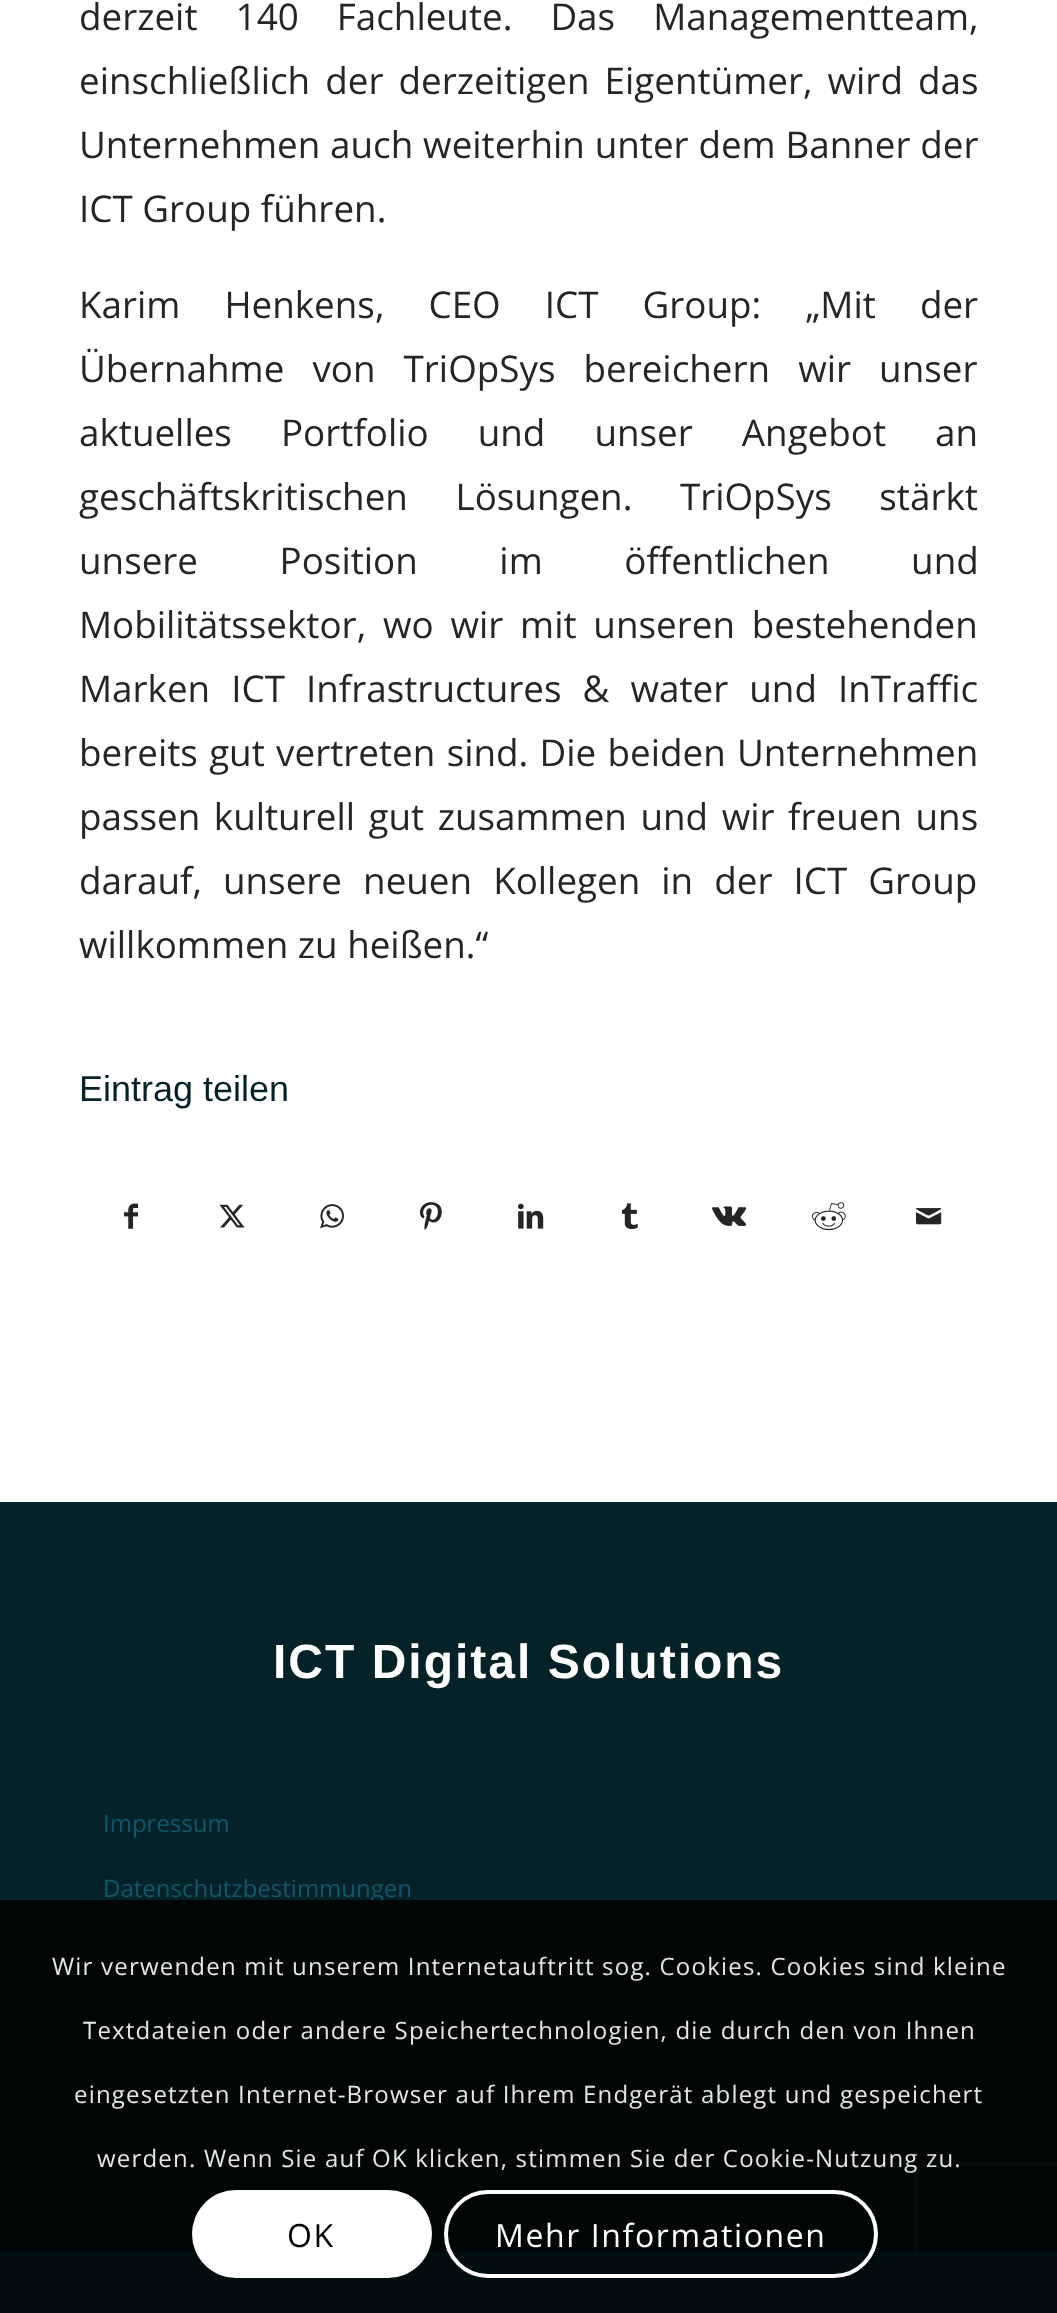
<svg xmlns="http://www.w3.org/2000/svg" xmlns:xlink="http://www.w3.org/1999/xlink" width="1057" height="2313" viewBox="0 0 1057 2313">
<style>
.cls-1{font:36.8px Open Sans;fill:#252525}
.cls-2{font:36px Liberation Sans;fill:#062229}
.cls-3{font:bold 48px Liberation Sans;letter-spacing:2px;fill:#ffffff}
.cls-4{font:24px Open Sans;fill:#0f596e}
.cls-5{font:24px Open Sans;letter-spacing:1.2px;fill:#e6e6e6}
.cls-6{font:32px Open Sans;letter-spacing:1.6px;fill:#000000}
.cls-7{font:32px Open Sans;letter-spacing:1.6px;fill:#ffffff}
</style>
<defs>
<clipPath id="clip1"><path d="M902 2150H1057V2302H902ZM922 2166H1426C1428 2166 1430 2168 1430 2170V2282C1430 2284 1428 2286 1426 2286H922C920 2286 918 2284 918 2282V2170C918 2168 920 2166 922 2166Z" clip-rule="evenodd"/></clipPath>
</defs>
<rect width="100%" height="100%" fill="#ffffff"/>
<image xlink:href="image0.png" x="124" y="1203" width="14" height="26"/>
<image xlink:href="image1.png" x="219" y="1204" width="26" height="24"/>
<image xlink:href="image2.png" x="320" y="1204" width="24" height="25"/>
<image xlink:href="image3.png" x="420" y="1202" width="22" height="29"/>
<image xlink:href="image4.png" x="518" y="1203" width="26" height="26"/>
<image xlink:href="image5.png" x="622" y="1203" width="16" height="27"/>
<image xlink:href="image6.png" x="712" y="1206" width="35" height="20"/>
<image xlink:href="image7.png" x="812" y="1202" width="34" height="29"/>
<image xlink:href="image8.png" x="916" y="1208" width="26" height="17"/>
<rect fill="#062229" x="0" y="1502" width="1057" height="750"/>
<g clip-path="url(#clip1)">
<rect fill="#808080" filter="blur(5px)" x="918" y="2166" width="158" height="120" rx="4"/>
</g>
<rect fill="#0f596e" x="0" y="2252" width="1057" height="61"/>
<text class="cls-1"><tspan x="79" y="30" word-spacing="28.5">derzeit 140 Fachleute. Das Managementteam,</tspan><tspan x="79" y="94" word-spacing="5.5">einschließlich der derzeitigen Eigentümer, wird das</tspan><tspan x="79" y="158" word-spacing="0.25">Unternehmen auch weiterhin unter dem Banner der</tspan><tspan x="79" y="222">ICT Group führen.</tspan></text>
<text class="cls-1"><tspan x="79" y="318" word-spacing="34.5">Karim Henkens, CEO ICT Group: „Mit der</tspan><tspan x="79" y="382" word-spacing="18.5">Übernahme von TriOpSys bereichern wir unser</tspan><tspan x="79" y="446" word-spacing="39.5">aktuelles Portfolio und unser Angebot an</tspan><tspan x="79" y="510" word-spacing="38">geschäftskritischen Lösungen. TriOpSys stärkt</tspan><tspan x="79" y="574" word-spacing="72">unsere Position im öffentlichen und</tspan><tspan x="79" y="638" word-spacing="7.25">Mobilitätssektor, wo wir mit unseren bestehenden</tspan><tspan x="79" y="702" word-spacing="11.5">Marken ICT Infrastructures &amp; water und InTraffic</tspan><tspan x="79" y="766" word-spacing="1.75">bereits gut vertreten sind. Die beiden Unternehmen</tspan><tspan x="79" y="830" word-spacing="4">passen kulturell gut zusammen und wir freuen uns</tspan><tspan x="79" y="894" word-spacing="11.5">darauf, unsere neuen Kollegen in der ICT Group</tspan><tspan x="79" y="958">willkommen zu heißen.“</tspan></text>
<text class="cls-2" x="79" y="1101">Eintrag teilen</text>
<text class="cls-3" x="273" y="1678">ICT Digital Solutions</text>
<text class="cls-4" x="103" y="1832">Impressum</text>
<text class="cls-4" x="103" y="1897">Datenschutzbestimmungen</text>
<rect fill="#000000" fill-opacity="0.85" x="0" y="1900" width="1057" height="413"/>
<text class="cls-5" x="52" y="1975">Wir verwenden mit unserem Internetauftritt sog. Cookies. Cookies sind kleine</text>
<text class="cls-5" x="83" y="2039">Textdateien oder andere Speichertechnologien, die durch den von Ihnen</text>
<text class="cls-5" x="74" y="2103">eingesetzten Internet-Browser auf Ihrem Endgerät ablegt und gespeichert</text>
<text class="cls-5" x="97" y="2167">werden. Wenn Sie auf OK klicken, stimmen Sie der Cookie-Nutzung zu.</text>
<rect fill="#ffffff" x="192" y="2190" width="240" height="88" rx="44"/>
<text class="cls-6" x="287" y="2247">OK</text>
<rect fill="none" stroke="#ffffff" stroke-width="4" x="446" y="2192" width="430" height="84" rx="42"/>
<text class="cls-7" x="495" y="2247">Mehr Informationen</text>
</svg>
